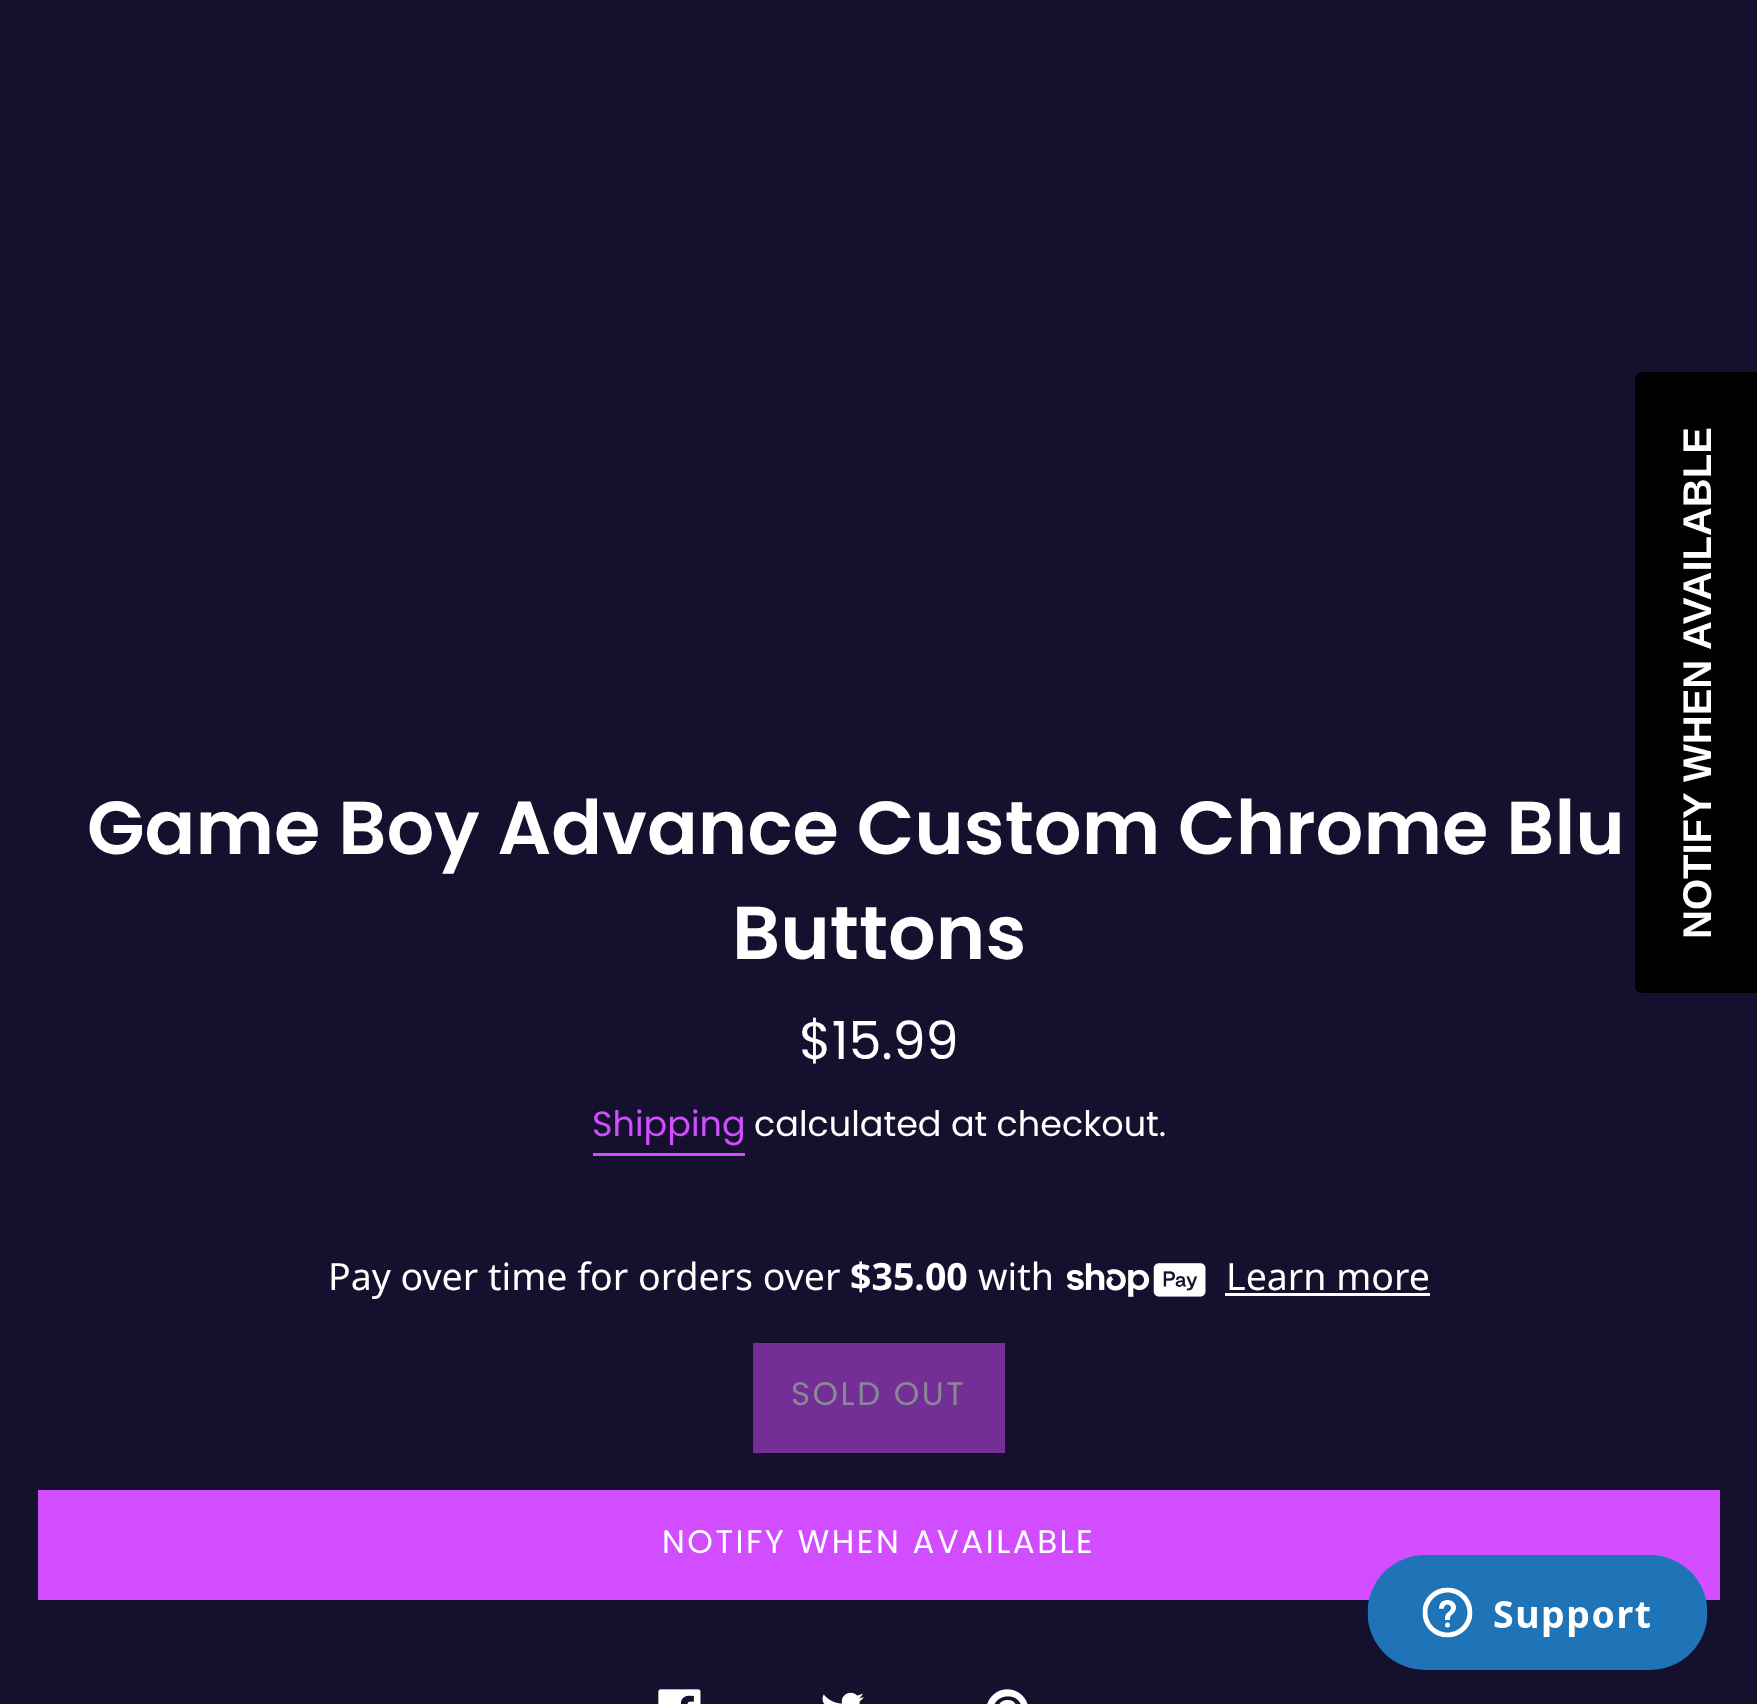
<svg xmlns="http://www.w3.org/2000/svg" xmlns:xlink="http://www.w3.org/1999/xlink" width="1757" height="1704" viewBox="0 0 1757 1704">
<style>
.cls-1{font:bold 40px Liberation Sans;fill:#ffffff}
.cls-2{font:600 75px Poppins;fill:#ffffff}
.cls-3{font:52.5px Poppins;fill:#ffffff}
.cls-4{font:35px Poppins;fill:#d24dff}
.cls-5{font:35px Poppins;fill:#ffffff}
.cls-6{font:37.5px Noto Sans;fill:#ffffff}
.cls-7{font:bold 37.5px Noto Sans;fill:#ffffff}
.cls-8{font:32.5px Poppins;letter-spacing:2.5px;fill:#8a8896}
.cls-9{font:32.5px Poppins;letter-spacing:2.5px;fill:#ffffff}
</style>
<rect width="100%" height="100%" fill="#15102d"/>
<path fill="#000000" d="M1638 986V380C1638 377 1640 375 1643 375H1757V991H1643C1640 991 1638 989 1638 986Z"/>
<path fill="#000000" fill-rule="evenodd" d="M1635 986V380C1635 376 1638 372 1643 372H1757V993H1643C1638 993 1635 990 1635 986ZM1638 986V380C1638 377 1640 375 1643 375H1757V991H1643C1640 991 1638 989 1638 986Z"/>
<rect fill="#d24dff" x="593" y="1153" width="152" height="3"/>
<image xlink:href="image0.png" x="1067" y="1263" width="139" height="34"/>
<rect fill="#ffffff" x="1225" y="1293" width="205" height="3"/>
<rect fill="#742f96" x="753" y="1343" width="252" height="110"/>
<rect fill="#d24dff" x="38" y="1490" width="1682" height="110"/>
<image xlink:href="image1.png" x="658" y="1689" width="43" height="15"/>
<image xlink:href="image2.png" x="822" y="1692" width="42" height="12"/>
<image xlink:href="image3.png" x="987" y="1689" width="41" height="15"/>
<image xlink:href="image4.png" x="1367" y="1555" width="341" height="115"/>
<text class="cls-1" x="1711" y="939" transform="rotate(-90 1711 939)">NOTIFY WHEN AVAILABLE</text>
<text class="cls-2" x="87" y="854">Game Boy Advance Custom Chrome Blu</text>
<text class="cls-2" x="732" y="959">Buttons</text>
<text class="cls-3" x="799" y="1059">$15.99</text>
<text class="cls-4" x="592" y="1136">Shipping</text>
<text class="cls-5" x="754" y="1136">calculated at checkout.</text>
<text class="cls-6" x="328" y="1290">Pay over time for orders over</text>
<text class="cls-7" x="850" y="1290">$35.00</text>
<text class="cls-6" x="978" y="1290">with</text>
<text class="cls-6" x="1226" y="1290">Learn more</text>
<text class="cls-8" x="791" y="1405">SOLD OUT</text>
<text class="cls-9" x="662" y="1553">NOTIFY WHEN AVAILABLE</text>
</svg>
